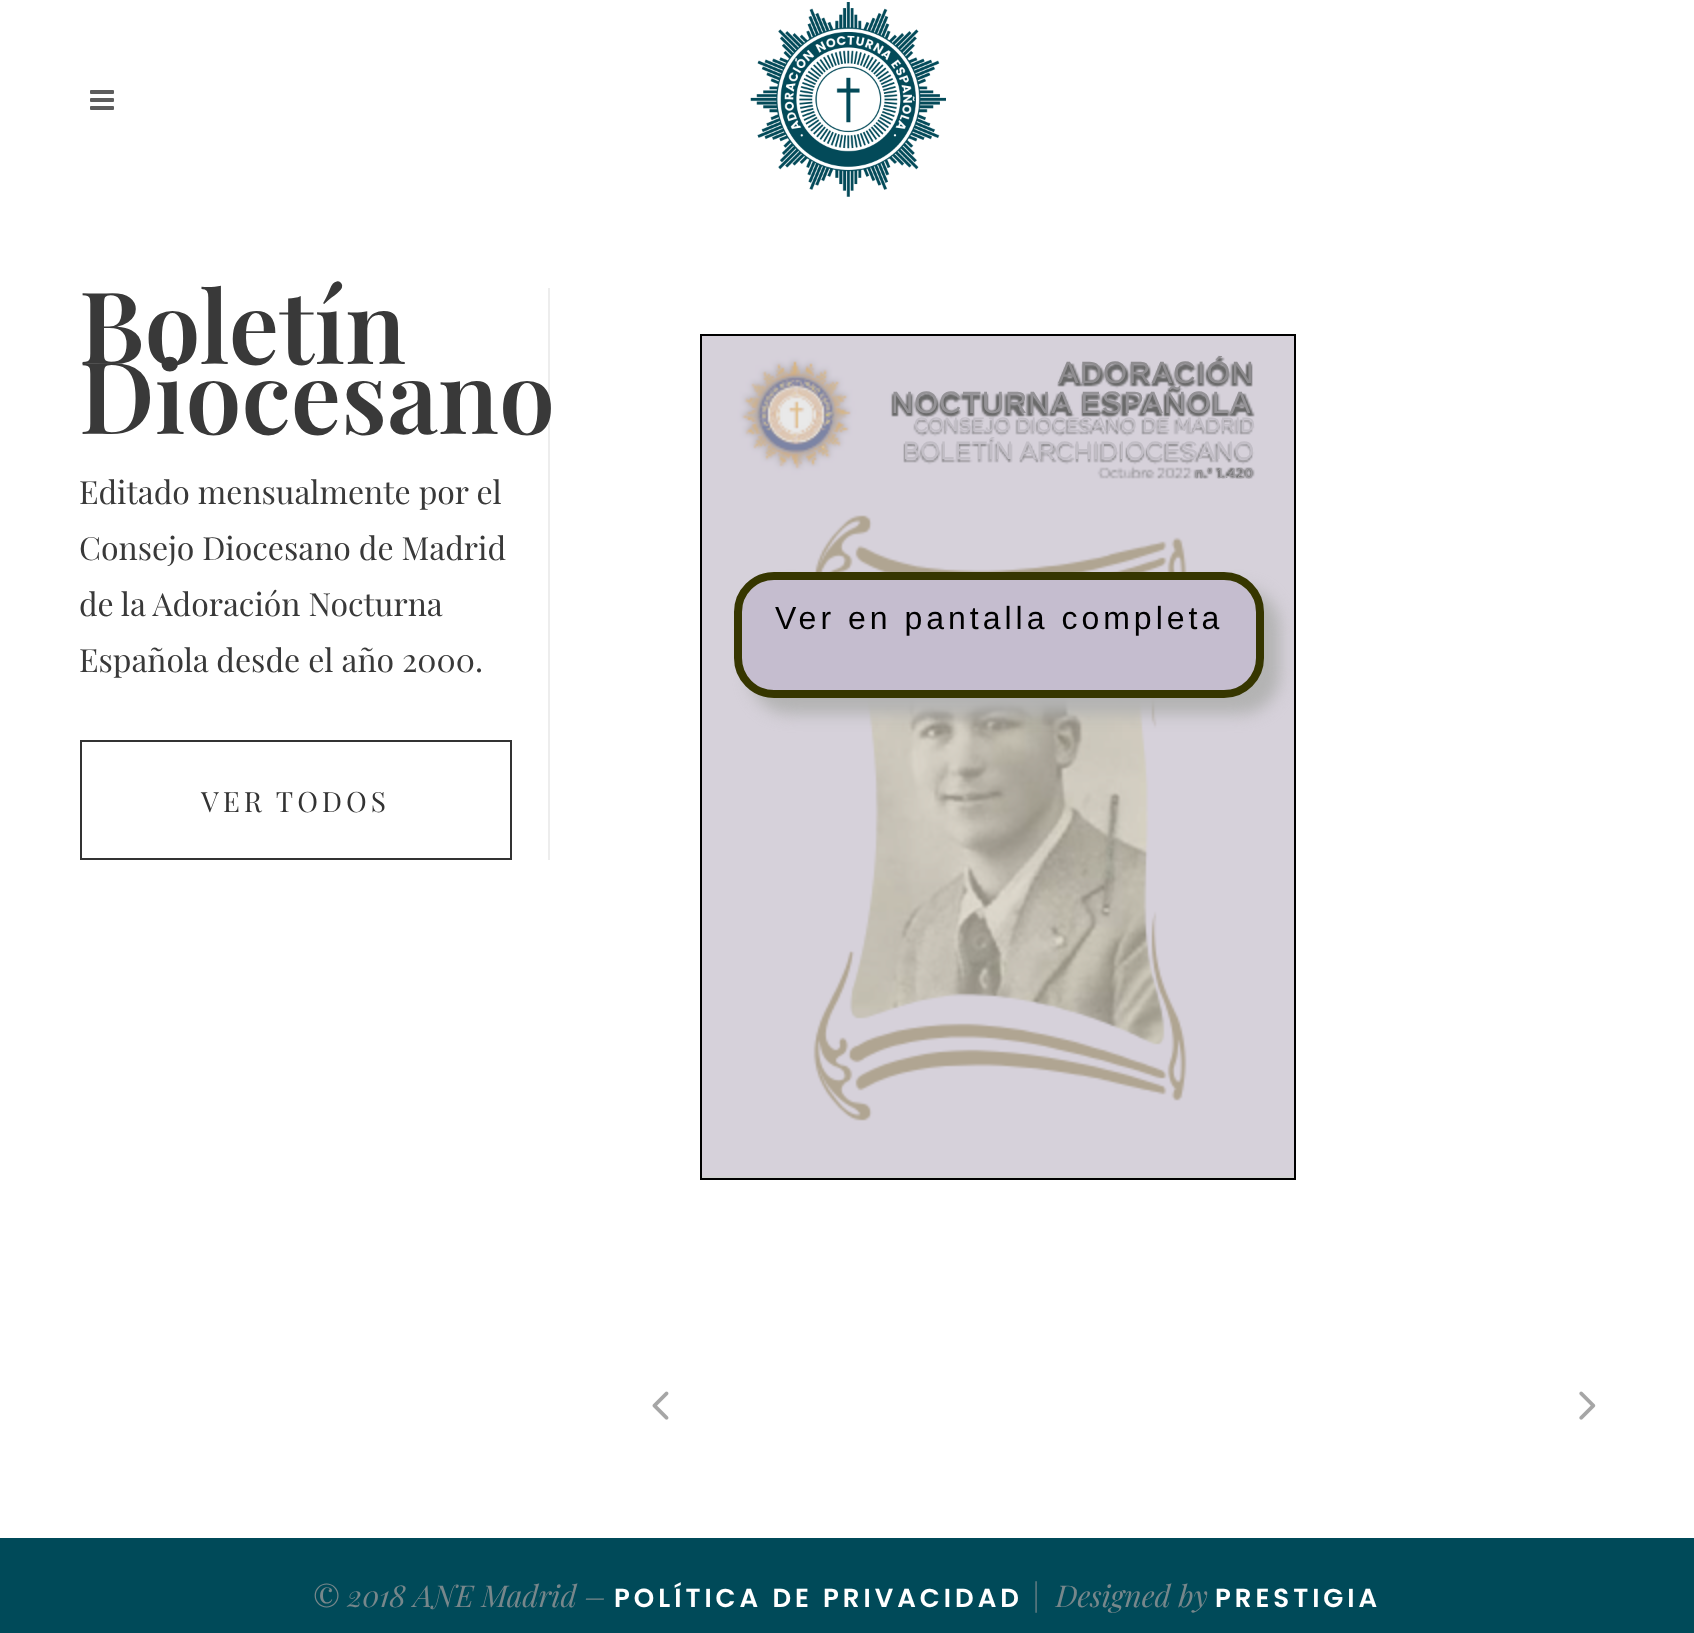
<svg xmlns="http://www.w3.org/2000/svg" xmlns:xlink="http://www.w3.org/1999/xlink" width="1694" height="1633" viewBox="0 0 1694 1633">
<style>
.cls-1{font:600 100px Playfair Display;fill:#393939}
.cls-2{font:32px Playfair Display;fill:#393939}
.cls-3{font:28px Playfair Display;letter-spacing:4px;fill:#333333}
.cls-4{font:31px Liberation Sans;letter-spacing:1px;fill:#8f8d90}
.cls-5{font:31px Liberation Sans;letter-spacing:0.75px;fill:#959397}
.cls-6{font:19.75px Liberation Sans;letter-spacing:0.2px;fill:#c2bec6}
.cls-7{font:25.4px Liberation Sans;letter-spacing:0.25px;fill:#c2bec6}
.cls-8{font:14px Liberation Sans;letter-spacing:0.25px;fill:#a09da2}
.cls-9{font:32px Liberation Sans;letter-spacing:4px;fill:#000000}
.cls-10{font:italic 30px Playfair Display;fill:#77878b}
.cls-11{font:600 26px Poppins;letter-spacing:4px;fill:#ffffff}
</style>
<defs>
<clipPath id="clip1"><rect x="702" y="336" width="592" height="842"/></clipPath>
</defs>
<rect width="100%" height="100%" fill="#ffffff"/>
<image xlink:href="image0.png" x="90" y="90" width="24" height="20"/>
<image xlink:href="image1.png" x="750" y="2" width="196" height="195"/>
<rect fill="#ededed" x="548" y="288" width="2" height="572"/>
<rect fill="none" stroke="#333333" stroke-width="2" x="81" y="741" width="430" height="118"/>
<rect fill="none" stroke="#000000" stroke-width="2" x="701" y="335" width="594" height="844"/>
<rect fill="#d3d3d3" x="702" y="1176" width="592" height="2"/>
<image xlink:href="image2.png" x="702" y="336" width="592" height="840"/>
<g clip-path="url(#clip1)">
<rect fill="#b3b3b3" filter="blur(8px)" x="750" y="588" width="530" height="126" rx="40"/>
</g>
<rect fill="#c5bdcf" stroke="#363600" stroke-width="8" x="738" y="576" width="522" height="118" rx="36"/>
<image xlink:href="image3.png" x="652" y="1391" width="17" height="29"/>
<image xlink:href="image4.png" x="1579" y="1391" width="17" height="29"/>
<rect fill="#004a59" x="0" y="1538" width="1694" height="95"/>
<text class="cls-1"><tspan x="79" y="364">Boletín</tspan><tspan x="79" y="434">Diocesano</tspan></text>
<text class="cls-2"><tspan x="79" y="504">Editado mensualmente por el</tspan><tspan x="79" y="560">Consejo Diocesano de Madrid</tspan><tspan x="79" y="616">de la Adoración Nocturna</tspan><tspan x="79" y="672">Española desde el año 2000.</tspan></text>
<text class="cls-3" x="201" y="812">VER TODOS</text>
<text class="cls-4" x="1058" y="383">ADORACIÓN</text>
<text class="cls-5" x="891" y="413">NOCTURNA ESPAÑOLA</text>
<text class="cls-6" x="914" y="431">CONSEJO DIOCESANO DE MADRID</text>
<text class="cls-7" x="903" y="459">BOLETÍN ARCHIDIOCESANO</text>
<text class="cls-8" x="1195" y="478">n.º 1.420</text>
<text class="cls-9" x="775" y="629">Ver en pantalla completa</text>
<text class="cls-10" x="312" y="1607">© 2018 ANE Madrid –</text>
<text class="cls-11" x="614" y="1607">POLÍTICA DE PRIVACIDAD</text>
<text class="cls-10" xml:space="preserve" x="1031" y="1607">|  Designed by</text>
<text class="cls-11" x="1215" y="1607">PRESTIGIA</text>
</svg>
